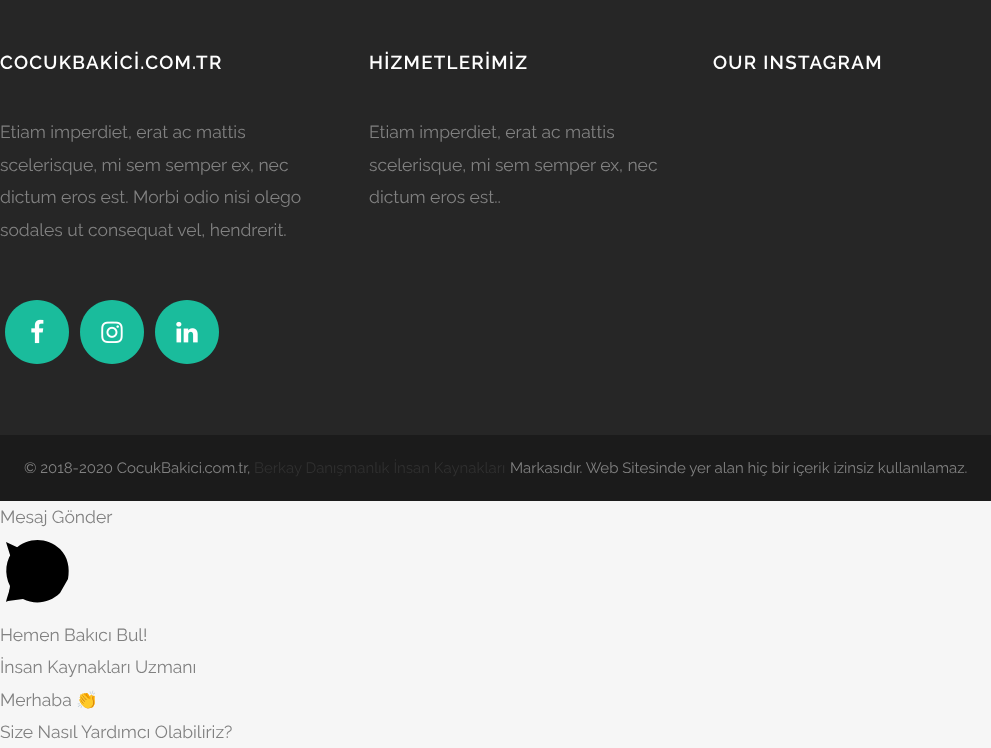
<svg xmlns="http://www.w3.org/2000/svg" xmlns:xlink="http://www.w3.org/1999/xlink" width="991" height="748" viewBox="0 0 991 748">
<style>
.cls-1{font:600 18.75px Raleway;letter-spacing:1.25px;fill:#ffffff}
.cls-2{font:17.5px Raleway;fill:#818181}
.cls-3{font:15px Raleway;fill:#818181}
.cls-4{font:15px Raleway;fill:#303030}
.cls-5{font:17.5px Noto Color Emoji;fill:#818181}
</style>
<rect width="100%" height="100%" fill="#f6f6f6"/>
<rect fill="#262626" x="0" y="0" width="991" height="435"/>
<path fill="#1abc9c" d="M69 332C69 314 55 300 37 300C19 300 5 314 5 332C5 350 19 364 37 364C55 364 69 350 69 332Z"/>
<image xlink:href="image0.png" x="31" y="319" width="13" height="25"/>
<path fill="#1abc9c" d="M144 332C144 314 130 300 112 300C94 300 80 314 80 332C80 350 94 364 112 364C130 364 144 350 144 332Z"/>
<image xlink:href="image1.png" x="101" y="321" width="22" height="22"/>
<path fill="#1abc9c" d="M219 332C219 314 205 300 187 300C169 300 155 314 155 332C155 350 169 364 187 364C205 364 219 350 219 332Z"/>
<image xlink:href="image2.png" x="176" y="321" width="22" height="22"/>
<rect fill="#1b1b1b" x="0" y="435" width="991" height="66"/>
<path fill="#000000" d="M32 571H15L6 542L68 571L17 596C6 601 5 605 7 598L12 582"/>
<path fill="#000000" d="M60 593C50 603 35 605 23 599L8 601L10 586C4 574 5 559 15 549C28 537 47 537 60 549C68 557 70 568 68 579"/>
<text class="cls-1" x="0" y="69">COCUKBAKİCİ.COM.TR</text>
<text class="cls-2"><tspan x="0" y="138">Etiam imperdiet, erat ac mattis</tspan><tspan x="0" y="171">scelerisque, mi sem semper ex, nec</tspan><tspan x="0" y="203">dictum eros est. Morbi odio nisi olego</tspan><tspan x="0" y="236">sodales ut consequat vel, hendrerit.</tspan></text>
<text class="cls-1" x="369" y="69">HİZMETLERİMİZ</text>
<text class="cls-2"><tspan x="369" y="138">Etiam imperdiet, erat ac mattis</tspan><tspan x="369" y="171">scelerisque, mi sem semper ex, nec</tspan><tspan x="369" y="203">dictum eros est..</tspan></text>
<text class="cls-1" x="713" y="69">OUR INSTAGRAM</text>
<text class="cls-3" x="24" y="473">© 2018-2020 CocukBakici.com.tr,</text>
<text class="cls-4" x="254" y="473">Berkay Danışmanlık İnsan Kaynakları</text>
<text class="cls-3" x="510" y="473">Markasıdır. Web Sitesinde yer alan hiç bir içerik izinsiz kullanılamaz.</text>
<text class="cls-2" x="0" y="523">Mesaj Gönder</text>
<text class="cls-2"><tspan x="0" y="641">Hemen Bakıcı Bul!</tspan><tspan x="0" y="673">İnsan Kaynakları Uzmanı</tspan><tspan x="0" y="706">Merhaba</tspan></text>
<text class="cls-5" x="76" y="706">👏</text>
<text class="cls-2" x="0" y="738">Size Nasıl Yardımcı Olabiliriz?</text>
</svg>
